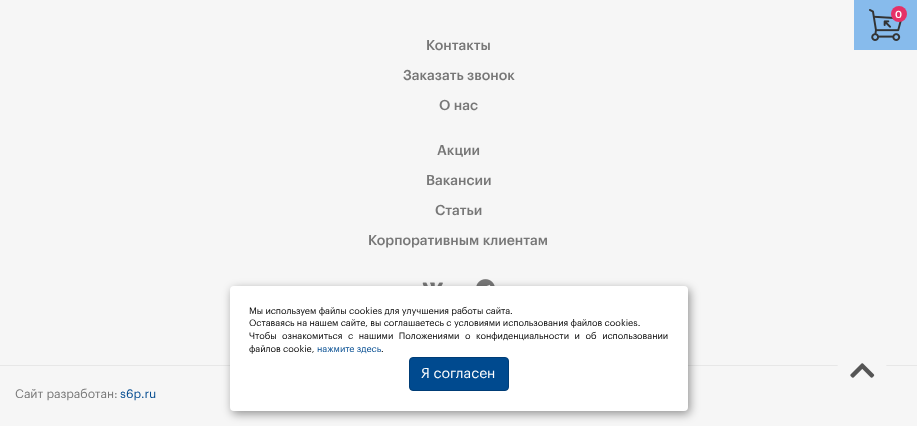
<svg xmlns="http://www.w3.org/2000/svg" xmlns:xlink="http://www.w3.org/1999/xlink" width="917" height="426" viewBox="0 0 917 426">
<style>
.cls-1{font:500 10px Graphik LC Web;fill:#ffffff}
.cls-2{font:500 14px Graphik LC Web;fill:#777777}
.cls-3{font:12px Graphik LC Web;fill:#777777}
.cls-4{font:12px Graphik LC Web;fill:#004a8f}
.cls-5{font:9px Graphik LC Web;fill:#000000}
.cls-6{font:9px Graphik LC Web;fill:#004a8f}
.cls-7{font:14px Graphik LC Web;fill:#ffffff}
</style>
<rect width="100%" height="100%" fill="#f6f6f6"/>
<rect fill="#87bbec" x="854" y="0" width="63" height="50"/>
<image xlink:href="image0.png" x="869" y="9" width="33" height="32"/>
<circle fill="#e53167" cx="899" cy="14" r="8"/>
<image xlink:href="image1.png" x="422" y="282" width="21" height="4"/>
<image xlink:href="image2.png" x="476" y="279" width="19" height="7"/>
<rect fill="#e7e7e7" x="0" y="365" width="917" height="1"/>
<circle fill="#f6f6f6" cx="862" cy="371" r="25"/>
<image xlink:href="image3.png" x="850" y="363" width="25" height="15"/>
<rect fill="#000000" fill-opacity="0.4" filter="blur(5px)" x="232" y="289" width="458" height="125" rx="4"/>
<rect fill="#ffffff" x="230" y="286" width="458" height="125" rx="4"/>
<rect fill="#004a8f" stroke="#003d76" x="409.5" y="357.5" width="99" height="33" rx="3.5"/>
<text class="cls-1" x="895" y="18">0</text>
<text class="cls-2" x="426" y="50">Контакты</text>
<text class="cls-2" x="403" y="80">Заказать звонок</text>
<text class="cls-2" x="439" y="110">О нас</text>
<text class="cls-2" x="437" y="155">Акции</text>
<text class="cls-2" x="426" y="185">Вакансии</text>
<text class="cls-2" x="435" y="215">Статьи</text>
<text class="cls-2" x="368" y="245">Корпоративным клиентам</text>
<text class="cls-3" x="15" y="398">Сайт разработан:</text>
<text class="cls-4" x="120" y="398">s6p.ru</text>
<text class="cls-5"><tspan x="249" y="314">Мы используем файлы cookies для улучшения работы сайта.</tspan><tspan x="249" y="326">Оставаясь на нашем сайте, вы соглашаетесь с условиями использования файлов cookies.</tspan><tspan x="249" y="339" word-spacing="3.25">Чтобы ознакомиться с нашими Положениями о конфиденциальности и об использовании</tspan><tspan x="249" y="352">файлов cookie,</tspan></text>
<text class="cls-6" x="317" y="352">нажмите здесь</text>
<text class="cls-5" x="381" y="352">.</text>
<text class="cls-7" x="421" y="378">Я согласен</text>
</svg>
